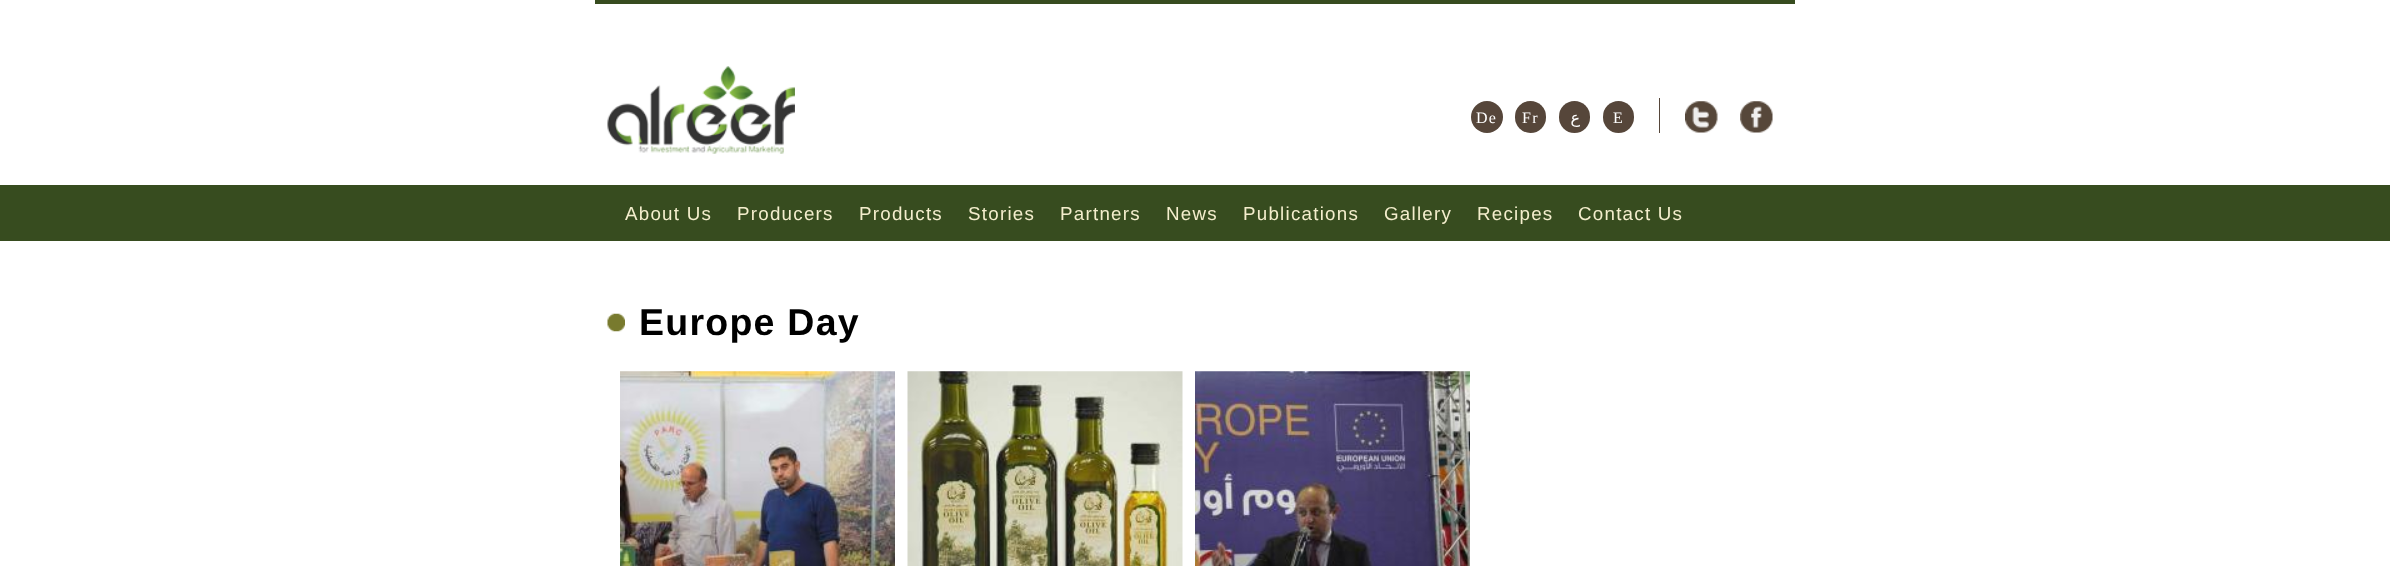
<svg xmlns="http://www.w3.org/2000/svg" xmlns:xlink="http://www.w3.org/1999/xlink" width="2390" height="566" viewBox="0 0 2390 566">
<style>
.cls-1{font:16px Liberation Serif;letter-spacing:1.25px;fill:#ffffff}
.cls-2{font:16px DejaVu Sans;letter-spacing:1.25px;direction:rtl;fill:#ffffff}
.cls-3{font:18.75px Liberation Sans;letter-spacing:1.25px;fill:#f4eecd}
.cls-4{font:bold 37.5px Liberation Sans;letter-spacing:1.25px;fill:#000000}
</style>
<rect width="100%" height="100%" fill="#ffffff"/>
<rect fill="#374c1f" x="595" y="0" width="1200" height="4"/>
<image xlink:href="image0.png" x="607" y="66" width="188" height="88"/>
<circle fill="#56463a" cx="1487" cy="117" r="16"/>
<rect fill="#56463a" x="1515" y="101" width="31" height="32" rx="15.5"/>
<rect fill="#56463a" x="1559" y="101" width="31" height="32" rx="15.5"/>
<rect fill="#56463a" x="1603" y="101" width="31" height="32" rx="15.5"/>
<rect fill="#56463a" x="1659" y="98" width="1" height="35"/>
<image xlink:href="image1.png" x="1685" y="101" width="33" height="32"/>
<image xlink:href="image2.png" x="1740" y="101" width="33" height="32"/>
<rect fill="#374c1f" x="0" y="185" width="2390" height="56"/>
<image xlink:href="image3.png" x="607" y="313" width="18" height="19"/>
<image xlink:href="image4.png" x="620" y="371" width="275" height="195"/>
<image xlink:href="image5.png" x="907" y="371" width="276" height="195"/>
<image xlink:href="image6.png" x="1195" y="371" width="275" height="195"/>
<text class="cls-1" x="1476" y="123">De</text>
<text class="cls-1" x="1522" y="123">Fr</text>
<text class="cls-2" x="1580" y="123">ع</text>
<text class="cls-1" x="1613" y="123">E</text>
<text class="cls-3" x="625" y="220">About Us</text>
<text class="cls-3" x="737" y="220">Producers</text>
<text class="cls-3" x="859" y="220">Products</text>
<text class="cls-3" x="968" y="220">Stories</text>
<text class="cls-3" x="1060" y="220">Partners</text>
<text class="cls-3" x="1166" y="220">News</text>
<text class="cls-3" x="1243" y="220">Publications</text>
<text class="cls-3" x="1384" y="220">Gallery</text>
<text class="cls-3" x="1477" y="220">Recipes</text>
<text class="cls-3" x="1578" y="220">Contact Us</text>
<text class="cls-4" x="639" y="335">Europe Day</text>
</svg>
